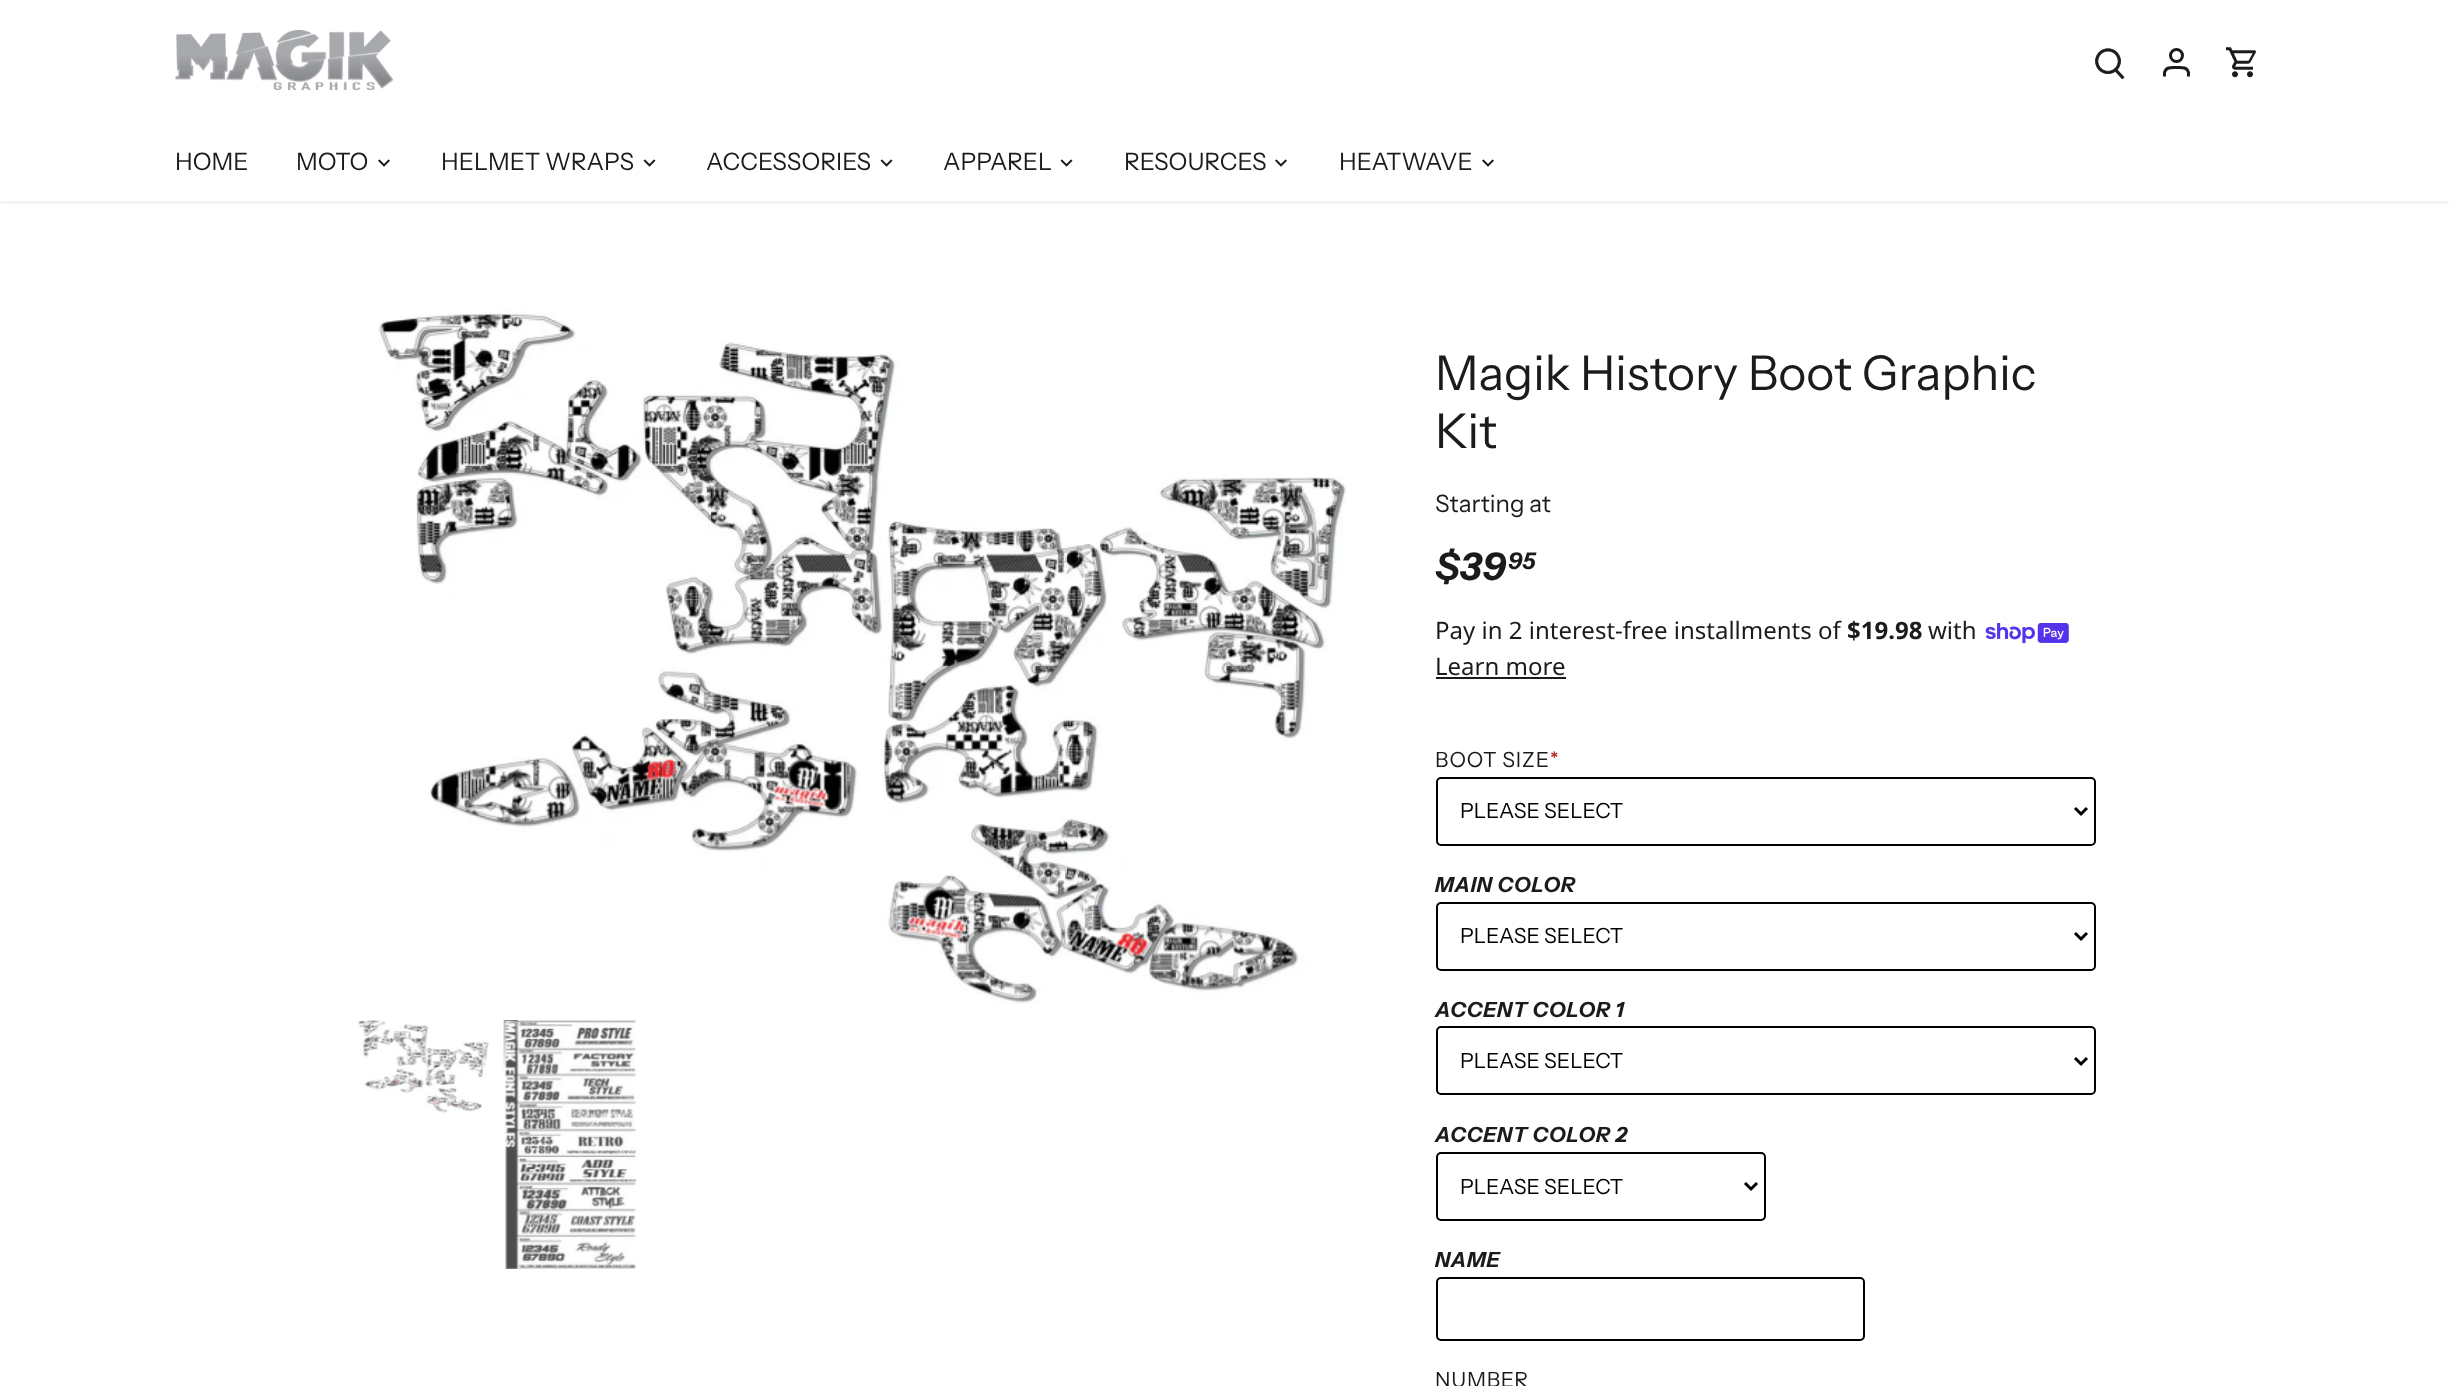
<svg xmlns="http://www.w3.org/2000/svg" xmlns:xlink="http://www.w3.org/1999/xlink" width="2449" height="1386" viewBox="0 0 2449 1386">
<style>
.cls-1{font:24px Instrument Sans;fill:#1b1b1b}
.cls-2{font:48px Instrument Sans;fill:#1b1b1b}
.cls-3{font:italic bold 38px Instrument Sans;fill:#1b1b1b}
.cls-4{font:italic bold 23px Instrument Sans;fill:#1b1b1b}
.cls-5{font:24px Noto Sans;fill:#1b1b1b}
.cls-6{font:bold 24px Noto Sans;fill:#1b1b1b}
.cls-7{font:21px Instrument Sans;letter-spacing:0.75px;fill:#1b1b1b}
.cls-8{font:21px Instrument Sans;letter-spacing:0.75px;fill:#ad0000}
.cls-9{font:21px Instrument Sans;fill:#000000}
.cls-10{font:italic bold 21px Instrument Sans;letter-spacing:0.75px;fill:#1b1b1b}
</style>
<defs>
<clipPath id="clip1"><rect x="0" y="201" width="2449" height="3"/></clipPath>
</defs>
<rect width="100%" height="100%" fill="#ffffff"/>
<g clip-path="url(#clip1)">
<rect fill="#000000" fill-opacity="0.08" filter="blur(2px)" x="-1" y="-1" width="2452" height="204"/>
</g>
<image xlink:href="image0.png" x="175" y="30" width="218" height="61"/>
<image xlink:href="image1.png" x="2095" y="48" width="30" height="32"/>
<circle fill="none" stroke="#1b1b1b" stroke-width="3" cx="2176.5" cy="55.5" r="6"/>
<path fill="none" stroke="#1b1b1b" stroke-width="3" d="M2188.5 76.5V72.5C2187 66.5 2181 67.5 2176.5 67.5C2172 67.5 2166 66.5 2164.5 72.5V76.5"/>
<image xlink:href="image2.png" x="2226" y="47" width="30" height="31"/>
<image xlink:href="image3.png" x="378" y="159" width="12" height="8"/>
<image xlink:href="image4.png" x="643" y="159" width="13" height="8"/>
<image xlink:href="image4.png" x="880" y="159" width="13" height="8"/>
<image xlink:href="image4.png" x="1060" y="159" width="13" height="8"/>
<image xlink:href="image3.png" x="1275" y="159" width="12" height="8"/>
<image xlink:href="image3.png" x="1482" y="159" width="12" height="8"/>
<image xlink:href="image5.png" x="378" y="309" width="968" height="695"/>
<image xlink:href="image6.png" x="358" y="1020" width="131" height="93"/>
<image xlink:href="image7.png" x="502" y="1020" width="135" height="249"/>
<image xlink:href="image8.png" x="1985" y="623" width="84" height="21"/>
<rect fill="#1b1b1b" x="1436" y="677" width="130" height="2"/>
<rect fill="none" stroke="#000000" stroke-width="2" x="1437" y="778" width="658" height="67" rx="4"/>
<path fill="none" stroke="#000000" stroke-width="3" d="M2075 808L2081 814L2087 808"/>
<rect fill="none" stroke="#000000" stroke-width="2" x="1437" y="903" width="658" height="67" rx="4"/>
<path fill="none" stroke="#000000" stroke-width="3" d="M2075 933L2081 939L2087 933"/>
<rect fill="none" stroke="#000000" stroke-width="2" x="1437" y="1027" width="658" height="67" rx="4"/>
<path fill="none" stroke="#000000" stroke-width="3" d="M2075 1058L2081 1064L2087 1058"/>
<rect fill="none" stroke="#000000" stroke-width="2" x="1437" y="1153" width="328" height="67" rx="4"/>
<path fill="none" stroke="#000000" stroke-width="3" d="M1745 1183L1751 1189L1757 1183"/>
<rect fill="none" stroke="#000000" stroke-width="2" x="1437" y="1278" width="427" height="62" rx="4"/>
<text class="cls-1" x="175" y="170">HOME</text>
<text class="cls-1" x="296" y="170">MOTO</text>
<text class="cls-1" x="441" y="170">HELMET WRAPS</text>
<text class="cls-1" x="706" y="170">ACCESSORIES</text>
<text class="cls-1" x="943" y="170">APPAREL</text>
<text class="cls-1" x="1124" y="170">RESOURCES</text>
<text class="cls-1" x="1339" y="170">HEATWAVE</text>
<text class="cls-2"><tspan x="1435" y="390">Magik History Boot Graphic</tspan><tspan x="1435" y="448">Kit</tspan></text>
<text class="cls-1" x="1435" y="512">Starting at</text>
<text class="cls-3" x="1435" y="580">$39</text>
<text class="cls-4" x="1508" y="569">95</text>
<text class="cls-5" x="1435" y="639">Pay in 2 interest-free installments of</text>
<text class="cls-6" x="1847" y="639">$19.98</text>
<text class="cls-5" x="1928" y="639">with</text>
<text class="cls-5" x="1435" y="675">Learn more</text>
<text class="cls-7" x="1435" y="767">BOOT SIZE</text>
<text class="cls-8" x="1550" y="767">*</text>
<text class="cls-9" x="1460" y="818">PLEASE SELECT</text>
<text class="cls-10" x="1435" y="892">MAIN COLOR</text>
<text class="cls-9" x="1460" y="943">PLEASE SELECT</text>
<text class="cls-10" x="1435" y="1017">ACCENT COLOR 1</text>
<text class="cls-9" x="1460" y="1068">PLEASE SELECT</text>
<text class="cls-10" x="1435" y="1142">ACCENT COLOR 2</text>
<text class="cls-9" x="1460" y="1194">PLEASE SELECT</text>
<text class="cls-10" x="1435" y="1267">NAME</text>
<text class="cls-7" x="1435" y="1387">NUMBER</text>
</svg>
